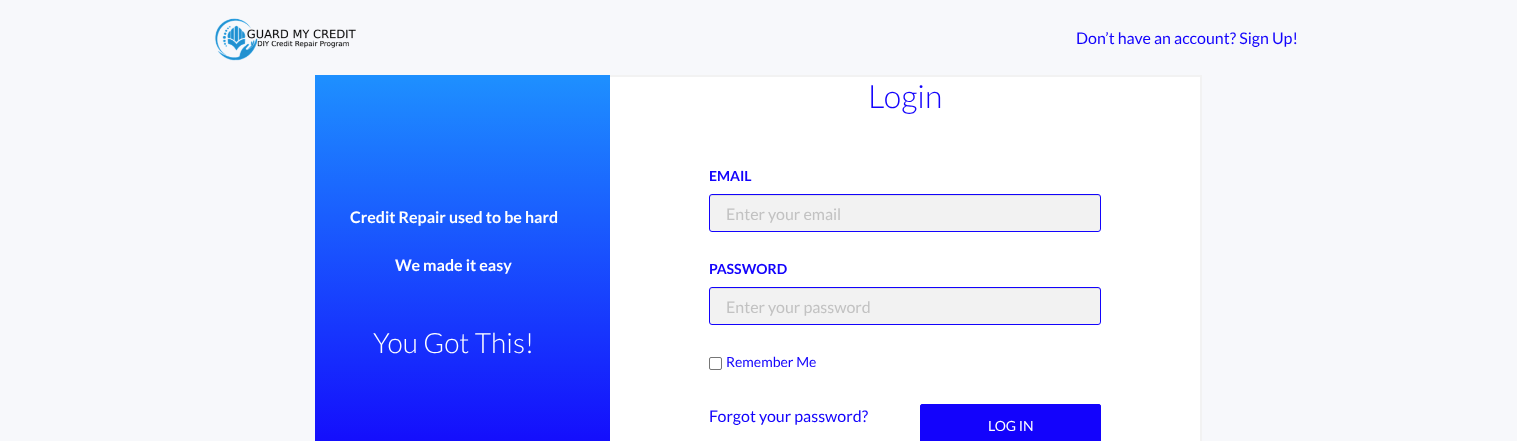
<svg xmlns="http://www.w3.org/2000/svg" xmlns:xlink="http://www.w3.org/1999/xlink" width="1517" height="441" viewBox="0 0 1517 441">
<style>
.cls-1{font:16px Lato;fill:#1303fc}
.cls-2{font:bold 16px Lato;fill:#ffffff}
.cls-3{font:300 28px Lato;fill:#ffffff}
.cls-4{font:300 32px Lato;fill:#1303fc}
.cls-5{font:bold 14px Lato;fill:#1303fc}
.cls-6{font:16px Lato;fill:#c2c2c2}
.cls-7{font:14px Lato;fill:#1303fc}
.cls-8{font:14px Lato;fill:#ffffff}
</style>
<defs>
<linearGradient id="g1" gradientUnits="userSpaceOnUse" x1="463" y1="75" x2="463" y2="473"><stop offset="0" stop-color="#1e90ff"/><stop offset="1" stop-color="#1303fc"/></linearGradient>
</defs>
<rect width="100%" height="100%" fill="#f7f8fb"/>
<image xlink:href="image0.png" x="214" y="18" width="142" height="43"/>
<rect fill="url(#g1)" x="315" y="75" width="295" height="366"/>
<rect fill="#ffffff" x="610" y="77" width="590" height="364"/>
<rect fill="#f2f2f2" x="610" y="75" width="592" height="2"/>
<rect fill="#f2f2f2" x="1200" y="75" width="2" height="366"/>
<rect fill="#f2f2f2" x="710" y="195" width="390" height="36" rx="2"/>
<path fill="#e0e0e0" d="M712 196H1098C1099 196 1100 197 1100 198C1100 197 1100 196 1099 195H712L710 196V198C710 197 711 196 712 196Z"/>
<rect fill="none" stroke="#1303fc" x="709.5" y="194.5" width="391" height="37" rx="2.5"/>
<rect fill="#f2f2f2" x="710" y="288" width="390" height="36" rx="2"/>
<path fill="#e0e0e0" d="M712 289H1098C1099 289 1100 290 1100 291C1100 290 1100 289 1099 288H712L710 289V291C710 290 711 289 712 289Z"/>
<rect fill="none" stroke="#1303fc" x="709.5" y="287.5" width="391" height="37" rx="2.5"/>
<rect fill="none" stroke="#767676" x="709.5" y="357.5" width="12" height="12" rx="1.5"/>
<rect fill="#1303fc" stroke="#1303fc" x="920.5" y="404.5" width="180" height="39" rx="1.5"/>
<text class="cls-1" x="1076" y="44">Don’t have an account? Sign Up!</text>
<text class="cls-2" x="350" y="223">Credit Repair used to be hard</text>
<text class="cls-2" x="395" y="271">We made it easy</text>
<text class="cls-3" x="373" y="353">You Got This!</text>
<text class="cls-4" x="868" y="108">Login</text>
<text class="cls-5" x="709" y="181">EMAIL</text>
<text class="cls-6" x="726" y="220">Enter your email</text>
<text class="cls-5" x="709" y="274">PASSWORD</text>
<text class="cls-6" x="726" y="313">Enter your password</text>
<text class="cls-7" x="726" y="367">Remember Me</text>
<text class="cls-1" x="709" y="422">Forgot your password?</text>
<text class="cls-8" x="988" y="431">LOG IN</text>
</svg>
